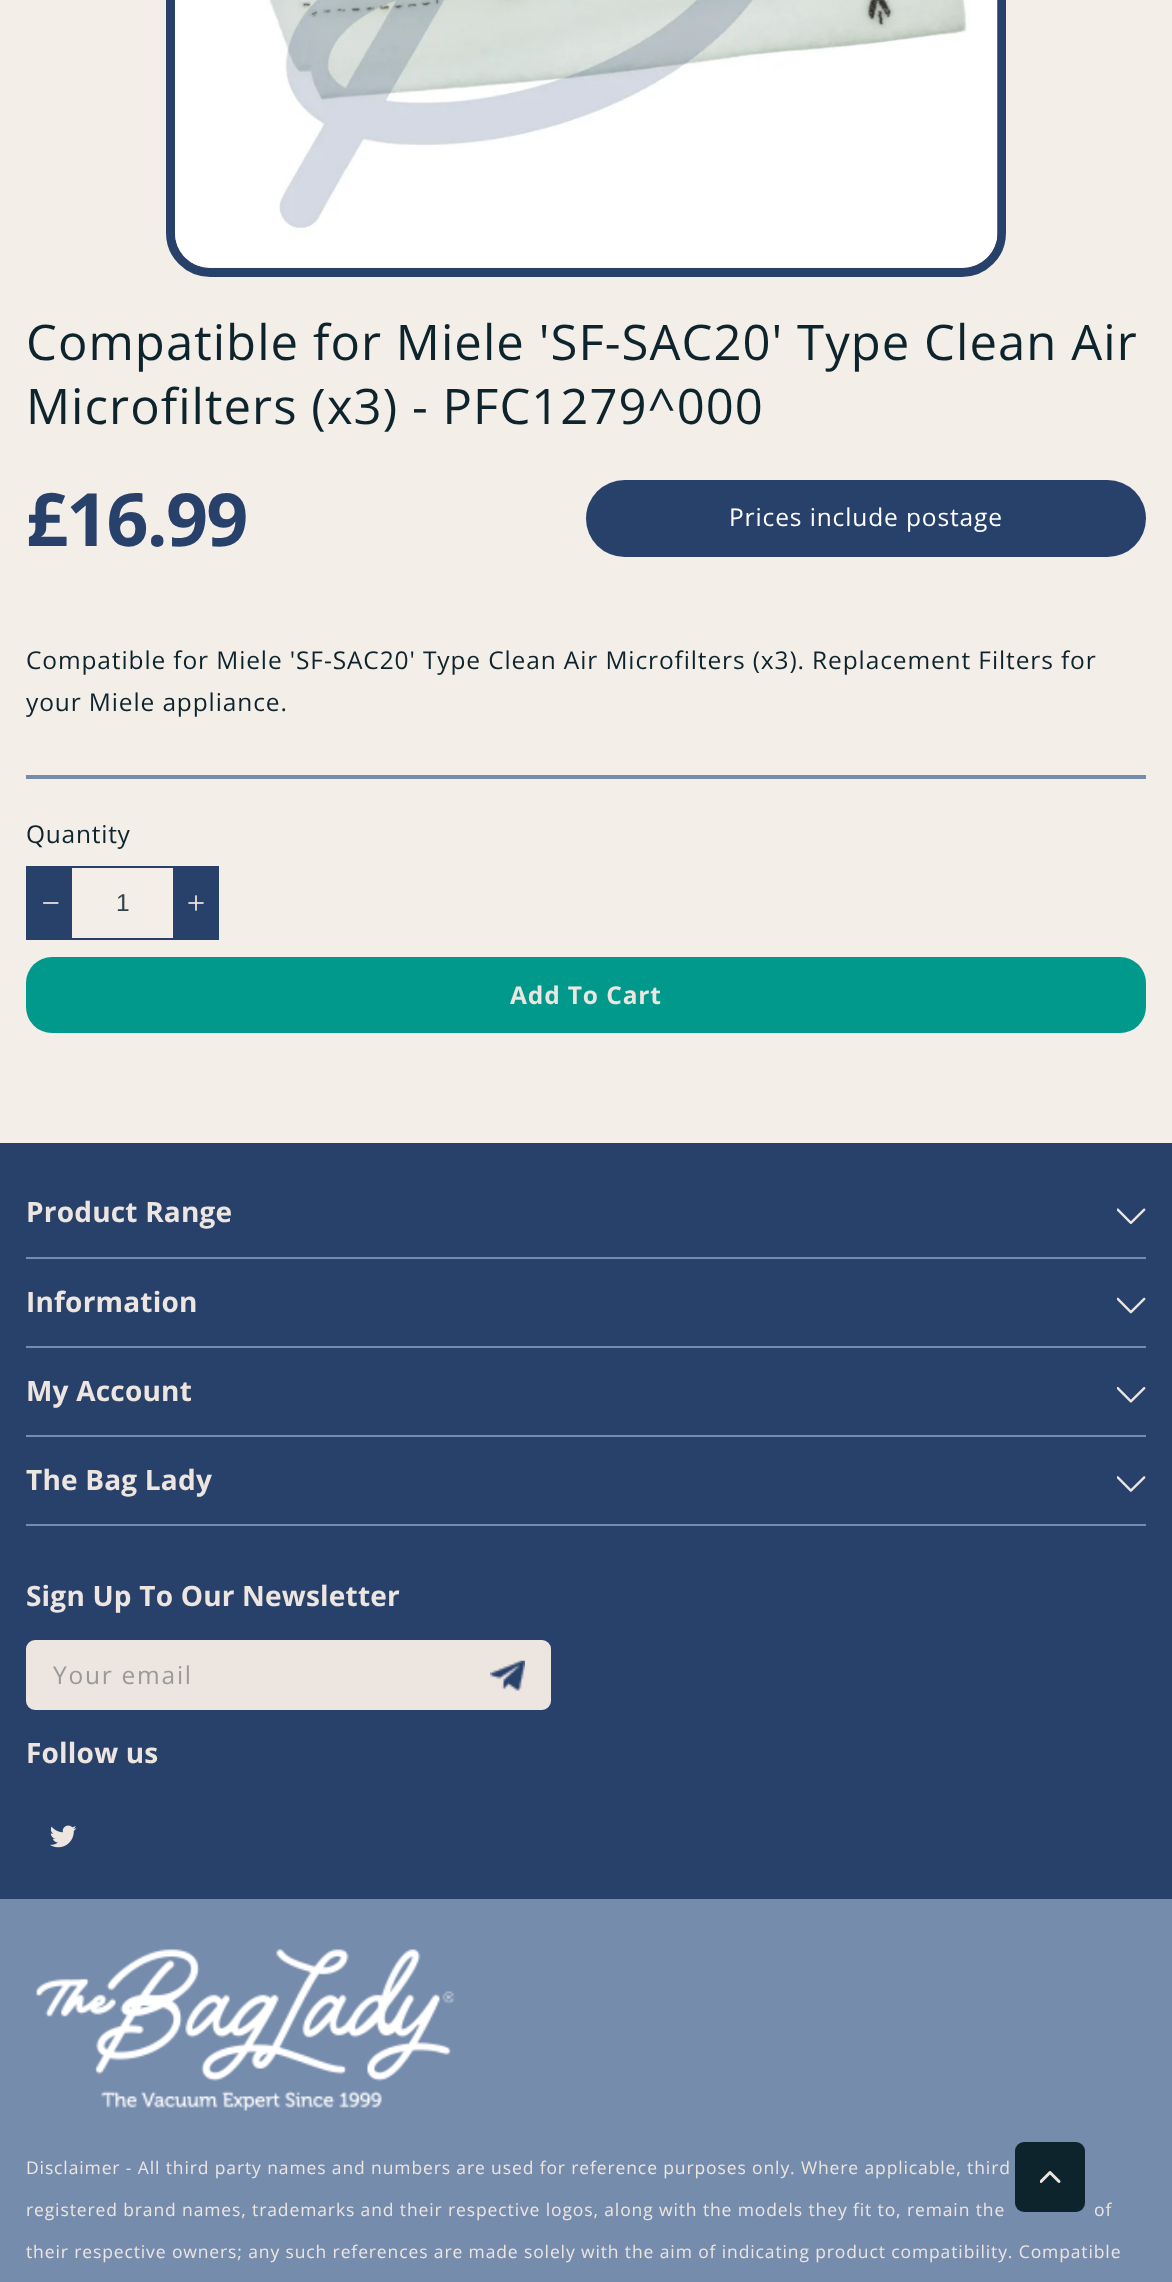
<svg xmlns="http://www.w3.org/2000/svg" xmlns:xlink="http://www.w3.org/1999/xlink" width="1172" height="2282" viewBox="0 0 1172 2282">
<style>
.cls-1{font:49px Open Sans;letter-spacing:1.05px;fill:#0e242d}
.cls-2{font:bold 73.5px Open Sans;letter-spacing:-1.75px;fill:#28416b}
.cls-3{font:24.5px Open Sans;letter-spacing:0.88px;fill:#ffffff}
.cls-4{font:24.5px Open Sans;letter-spacing:0.88px;fill:#0e242d}
.cls-5{font:24.5px Open Sans;letter-spacing:0.75px;fill:#0e242d}
.cls-6{font:24.5px Liberation Sans;fill:#314249}
.cls-7{font:bold 24.5px Open Sans;letter-spacing:0.88px;fill:#ede5df}
.cls-8{font:bold 28px Open Sans;letter-spacing:0.2px;fill:#ede5df}
.cls-9{font:24.5px Open Sans;letter-spacing:1.75px;fill:#9a9a9a}
.cls-10{font:17.5px Open Sans;letter-spacing:0.88px;fill:#ede5df}
</style>
<rect width="100%" height="100%" fill="#f4eee9"/>
<rect fill="none" stroke="#28416b" stroke-width="9" x="170.5" y="-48.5" width="831" height="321" rx="39.5"/>
<image xlink:href="image0.png" x="175" y="0" width="823" height="268"/>
<rect fill="#28416b" x="586" y="480" width="560" height="77" rx="38.5"/>
<rect fill="#768cad" x="26" y="775" width="1120" height="4"/>
<rect fill="none" stroke="#28416b" stroke-width="2" x="27" y="867" width="191" height="72"/>
<rect fill="#28416b" x="28" y="868" width="44" height="70"/>
<image xlink:href="image1.png" x="43" y="902" width="16" height="2"/>
<rect fill="#28416b" x="173" y="868" width="44" height="70"/>
<image xlink:href="image2.png" x="188" y="895" width="16" height="16"/>
<rect fill="#00998c" x="26" y="957" width="1120" height="76" rx="26"/>
<rect fill="#28416b" x="0" y="1143" width="1172" height="756"/>
<rect fill="#768cad" x="26" y="1257" width="1120" height="2"/>
<image xlink:href="image3.png" x="1117" y="1208" width="29" height="17"/>
<rect fill="#768cad" x="26" y="1346" width="1120" height="2"/>
<image xlink:href="image4.png" x="1117" y="1297" width="29" height="17"/>
<rect fill="#768cad" x="26" y="1435" width="1120" height="2"/>
<image xlink:href="image5.png" x="1117" y="1386" width="29" height="17"/>
<rect fill="#768cad" x="26" y="1524" width="1120" height="2"/>
<image xlink:href="image6.png" x="1117" y="1476" width="29" height="16"/>
<rect fill="#ede5df" stroke="#ede5df" stroke-width="2" x="27" y="1641" width="523" height="68" rx="8"/>
<image xlink:href="image7.png" x="490" y="1660" width="35" height="31"/>
<image xlink:href="image8.png" x="50" y="1825" width="27" height="23"/>
<rect fill="#768cad" x="0" y="1899" width="1172" height="383"/>
<image xlink:href="image9.png" x="35" y="1949" width="420" height="162"/>
<rect fill="#0e242d" x="1015" y="2142" width="70" height="70" rx="9"/>
<image xlink:href="image10.png" x="1040" y="2171" width="21" height="12"/>
<text class="cls-1"><tspan x="26" y="360">Compatible for Miele 'SF-SAC20' Type Clean Air</tspan><tspan x="26" y="424">Microfilters (x3) - PFC1279^000</tspan></text>
<text class="cls-2" x="26" y="546">£16.99</text>
<text class="cls-3" x="729" y="526">Prices include postage</text>
<text class="cls-4"><tspan x="26" y="669">Compatible for Miele 'SF-SAC20' Type Clean Air Microfilters (x3). Replacement Filters for</tspan><tspan x="26" y="711">your Miele appliance.</tspan></text>
<text class="cls-5" x="26" y="843">Quantity</text>
<text class="cls-6" x="116" y="911">1</text>
<text class="cls-7" x="510" y="1004">Add To Cart</text>
<text class="cls-8" x="26" y="1222">Product Range</text>
<text class="cls-8" x="26" y="1312">Information</text>
<text class="cls-8" x="26" y="1401">My Account</text>
<text class="cls-8" x="26" y="1490">The Bag Lady</text>
<text class="cls-8" x="26" y="1606">Sign Up To Our Newsletter</text>
<text class="cls-9" x="53" y="1684">Your email</text>
<text class="cls-8" x="26" y="1763">Follow us</text>
<text class="cls-10" x="26" y="2174">Disclaimer - All third party names and numbers are used for reference purposes only. Where applicable, third</text>
<text class="cls-10" x="26" y="2216">registered brand names, trademarks and their respective logos, along with the models they fit to, remain the</text>
<text class="cls-10" x="1094" y="2216">of</text>
<text class="cls-10" x="26" y="2258">their respective owners; any such references are made solely with the aim of indicating product compatibility. Compatible</text>
</svg>
